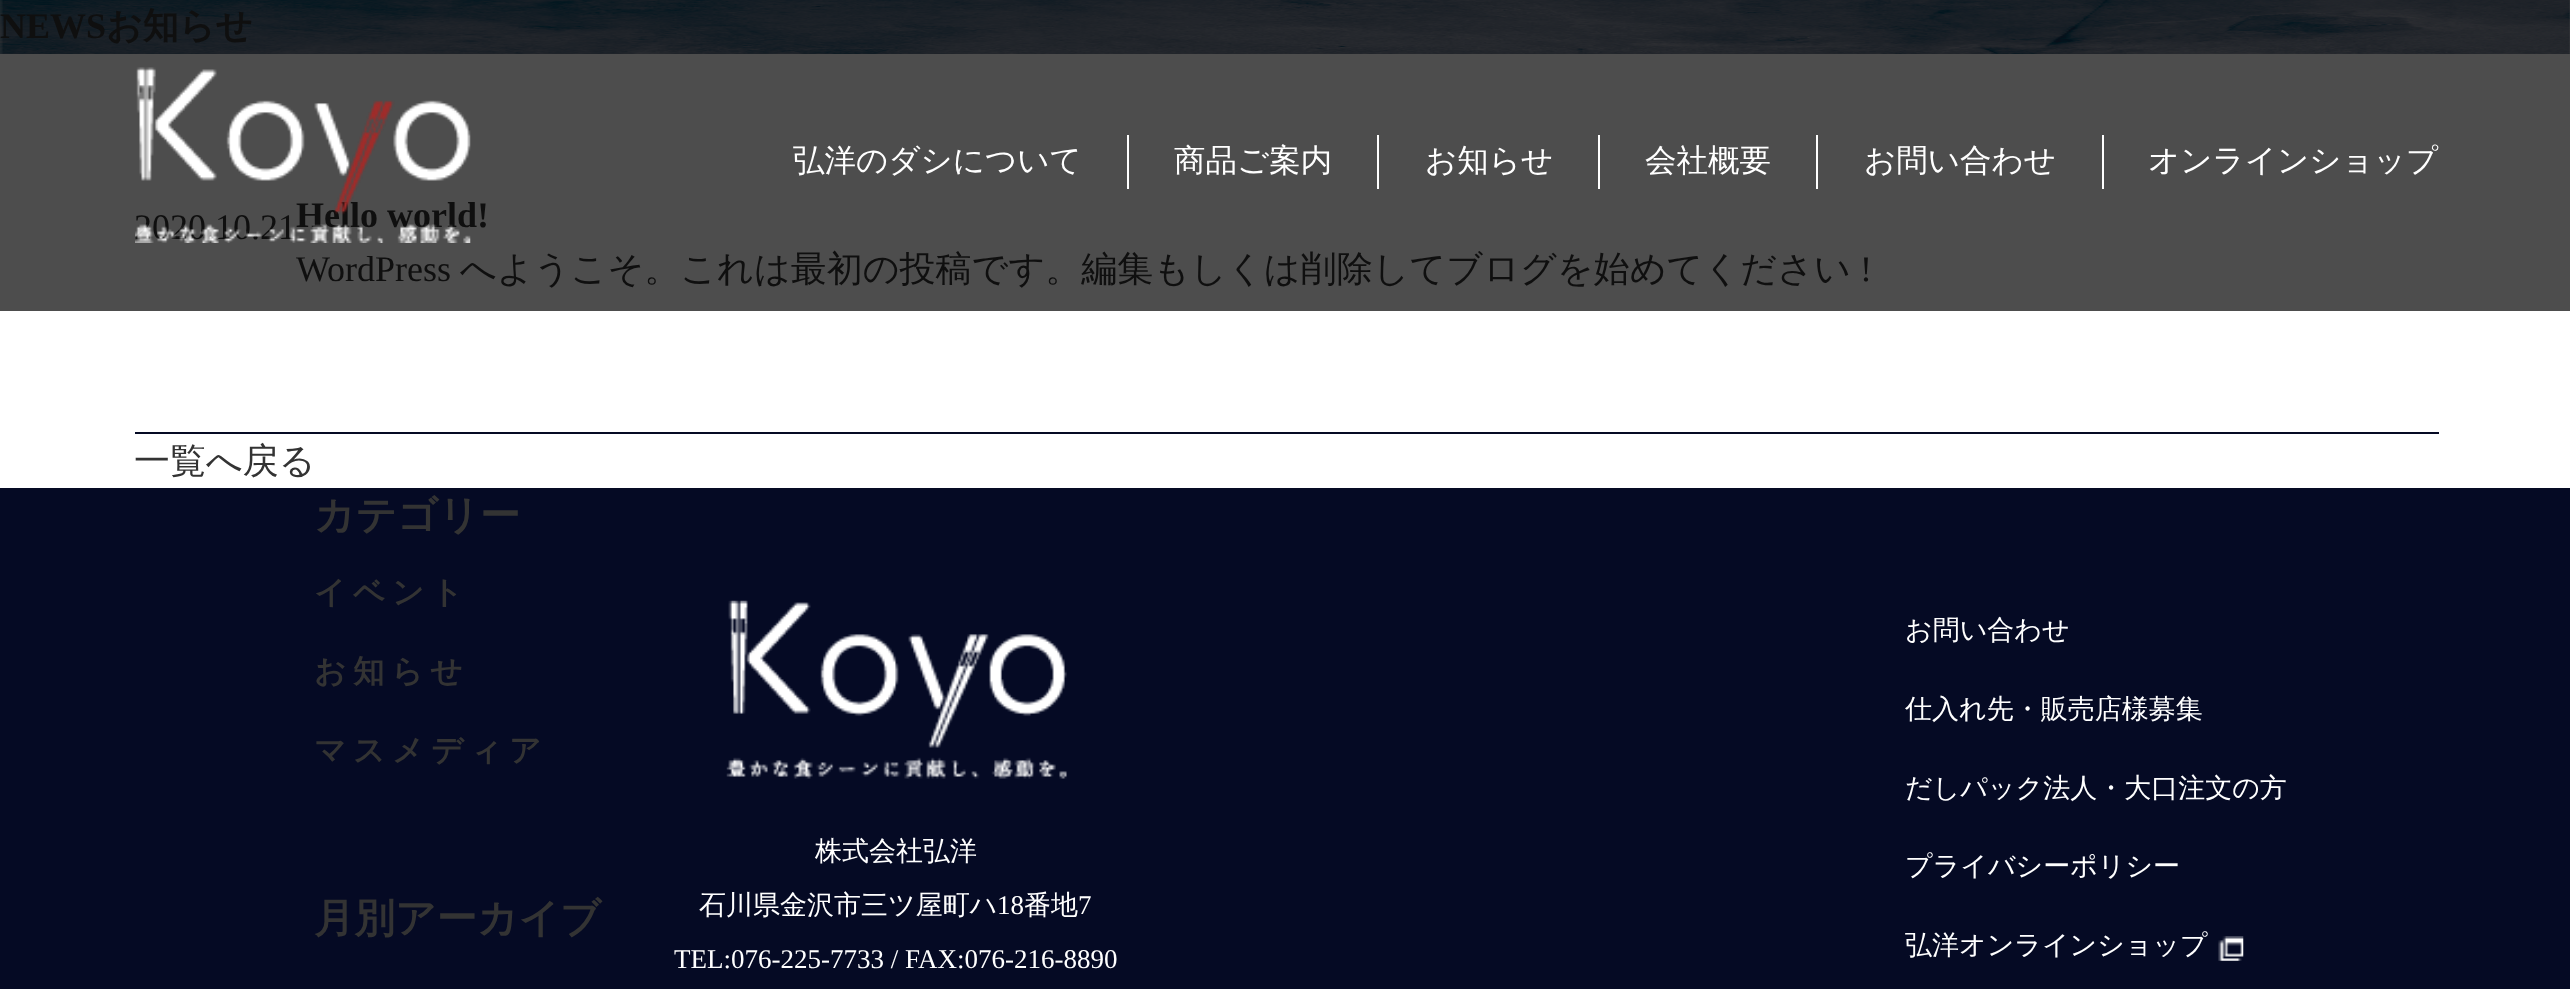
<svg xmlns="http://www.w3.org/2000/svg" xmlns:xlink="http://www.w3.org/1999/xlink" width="2570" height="989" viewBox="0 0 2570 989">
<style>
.cls-1{font:bold 36px Liberation Serif;fill:#0f0f0f}
.cls-2{font:bold 36px WenQuanYi Zen Hei;fill:#0f0f0f}
.cls-3{font:36px Liberation Serif;fill:#0f0f0f}
.cls-4{font:500 36px WenQuanYi Zen Hei;fill:#0f0f0f}
.cls-5{font:500 36px WenQuanYi Zen Hei;fill:#333333}
.cls-6{font:bold 40.5px WenQuanYi Zen Hei;fill:#333333}
.cls-7{font:bold 31.5px WenQuanYi Zen Hei;letter-spacing:6.75px;fill:#333333}
.cls-8{font:500 31.5px WenQuanYi Zen Hei;fill:#ffffff}
.cls-9{font:500 27px WenQuanYi Zen Hei;fill:#ffffff}
.cls-10{font:27px Liberation Serif;fill:#ffffff}
</style>
<rect width="100%" height="100%" fill="#ffffff"/>
<rect fill="#4d4d4d" x="0" y="0" width="2570" height="311"/>
<image xlink:href="image0.png" x="0" y="0" width="2570" height="54"/>
<rect fill="#050a24" x="135" y="432" width="2304" height="2"/>
<rect fill="#ffffff" x="1127" y="135" width="2" height="54"/>
<rect fill="#ffffff" x="1377" y="135" width="2" height="54"/>
<rect fill="#ffffff" x="1598" y="135" width="2" height="54"/>
<rect fill="#ffffff" x="1816" y="135" width="2" height="54"/>
<rect fill="#ffffff" x="2102" y="135" width="2" height="54"/>
<rect fill="#050a24" x="0" y="488" width="2570" height="501"/>
<image xlink:href="image2.png" x="726" y="600" width="341" height="179"/>
<image xlink:href="image3.png" x="2218" y="936" width="26" height="25"/>
<text class="cls-1" x="0" y="38">NEWS</text>
<text class="cls-2" x="106" y="38">お知らせ</text>
<text class="cls-3" x="134" y="239">2020.10.21</text>
<text class="cls-1" x="296" y="227">Hello world!</text>
<text class="cls-3" x="296" y="281">WordPress</text>
<text class="cls-4" x="460" y="281">へようこそ。これは最初の投稿です。編集もしくは削除してブログを始めてください</text>
<text class="cls-3" x="1860" y="281">!</text>
<text class="cls-5" x="134" y="473">一覧へ戻る</text>
<text class="cls-6" x="314" y="529">カテゴリー</text>
<text class="cls-7" x="314" y="603">イベント</text>
<text class="cls-7" x="314" y="682">お知らせ</text>
<text class="cls-7" x="314" y="761">マスメディア</text>
<text class="cls-6" x="314" y="932">月別アーカイブ</text>
<image xlink:href="image1.png" x="135" y="67" width="336" height="176"/>
<text class="cls-8" x="793" y="171">弘洋のダシについて</text>
<text class="cls-8" x="1174" y="171">商品ご案内</text>
<text class="cls-8" x="1425" y="171">お知らせ</text>
<text class="cls-8" x="1645" y="171">会社概要</text>
<text class="cls-8" x="1864" y="171">お問い合わせ</text>
<text class="cls-8" x="2148" y="171">オンラインショップ</text>
<text class="cls-9" x="815" y="860">株式会社弘洋</text>
<text class="cls-9" x="699" y="914">石川県金沢市三ツ屋町ハ</text>
<text class="cls-10" x="997" y="914">18</text>
<text class="cls-9" x="1024" y="914">番地</text>
<text class="cls-10" x="1078" y="914">7</text>
<text class="cls-10" x="674" y="968">TEL:076-225-7733 / FAX:076-216-8890</text>
<text class="cls-9" x="1905" y="639">お問い合わせ</text>
<text class="cls-9" x="1905" y="718">仕入れ先・販売店様募集</text>
<text class="cls-9" x="1905" y="797">だしパック法人・大口注文の方</text>
<text class="cls-9" x="1905" y="875">プライバシーポリシー</text>
<text class="cls-9" x="1905" y="954">弘洋オンラインショップ</text>
</svg>
